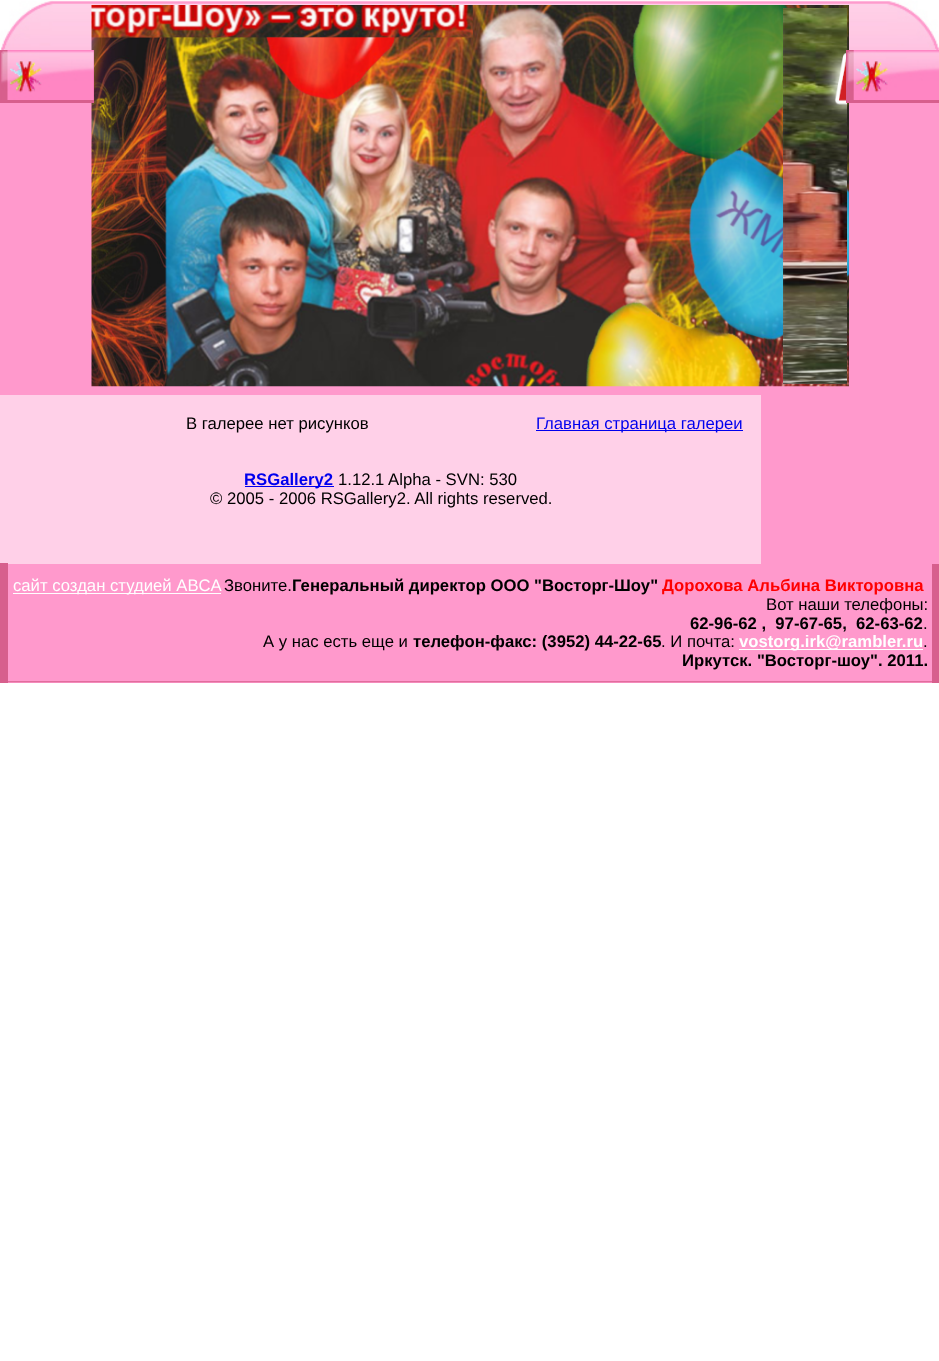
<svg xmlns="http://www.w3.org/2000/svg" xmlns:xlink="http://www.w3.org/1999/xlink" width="939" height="1361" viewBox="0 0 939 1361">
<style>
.cls-1{font:16.7px Liberation Sans;fill:#000000}
.cls-2{font:16.7px Liberation Sans;fill:#0000ee}
.cls-3{font:bold 16.7px Liberation Sans;fill:#0000ee}
.cls-4{font:16.7px Liberation Sans;fill:#ffffff}
.cls-5{font:bold 16.7px Liberation Sans;fill:#000000}
.cls-6{font:bold 16.7px Liberation Sans;fill:#ff0000}
.cls-7{font:bold 16.7px Liberation Sans;fill:#ffffff}
</style>
<rect width="100%" height="100%" fill="#ffffff"/>
<rect fill="#ff99cc" x="0" y="103" width="939" height="292"/>
<image xlink:href="image0.png" x="52" y="0" width="836" height="50"/>
<image xlink:href="image1.png" x="0" y="0" width="53" height="50"/>
<image xlink:href="image2.png" x="887" y="0" width="52" height="50"/>
<image xlink:href="image3.png" x="91" y="5" width="758" height="382"/>
<image xlink:href="image4.png" x="783" y="8" width="64" height="376"/>
<rect fill="#ff99cc" x="761" y="395" width="178" height="169"/>
<rect fill="#d75f8d" x="0" y="50" width="94" height="53"/>
<image xlink:href="image5.png" x="1" y="50" width="93" height="50"/>
<rect fill="#d75f8d" x="846" y="50" width="93" height="53"/>
<image xlink:href="image6.png" x="847" y="50" width="92" height="50"/>
<rect fill="#ffd0e8" x="0" y="395" width="761" height="169"/>
<rect fill="#0000ee" x="536" y="430" width="207" height="1"/>
<rect fill="#0000ee" x="245" y="486" width="89" height="1"/>
<rect fill="#ff99cc" x="8" y="564" width="924" height="119"/>
<image xlink:href="image7.png" x="8" y="681" width="924" height="2"/>
<rect fill="#d75f8d" x="932" y="564" width="7" height="119"/>
<rect fill="#d75f8d" x="0" y="563" width="8" height="120"/>
<rect fill="#ffffff" x="13" y="593" width="208" height="1"/>
<rect fill="#ffffff" x="739" y="649" width="184" height="1"/>
<text class="cls-1" x="186" y="429">В галерее нет рисунков</text>
<text class="cls-2" x="536" y="429">Главная страница галереи</text>
<text class="cls-3" x="244" y="485">RSGallery2</text>
<text class="cls-1" x="338" y="485">1.12.1 Alpha - SVN: 530</text>
<text class="cls-1" x="210" y="504">© 2005 - 2006 RSGallery2. All rights reserved.</text>
<text class="cls-4" x="13" y="591">сайт создан студией ABCA</text>
<text class="cls-1" x="224" y="591">Звоните.</text>
<text class="cls-5" x="292" y="591">Генеральный директор ООО "Восторг-Шоу"</text>
<text class="cls-6" x="662" y="591">Дорохова Альбина Викторовна</text>
<text class="cls-1" x="766" y="610">Вот наши телефоны:</text>
<text class="cls-5" xml:space="preserve" x="690" y="629">62-96-62 ,  97-67-65,  62-63-62</text>
<text class="cls-1" x="923" y="629">.</text>
<text class="cls-1" x="263" y="647">А у нас есть еще и</text>
<text class="cls-5" x="413" y="647">телефон-факс: (3952) 44-22-65</text>
<text class="cls-1" x="661" y="647">. И почта:</text>
<text class="cls-7" x="739" y="647">vostorg.irk@rambler.ru</text>
<text class="cls-1" x="923" y="647">.</text>
<text class="cls-5" x="682" y="666">Иркутск. "Восторг-шоу". 2011.</text>
</svg>
